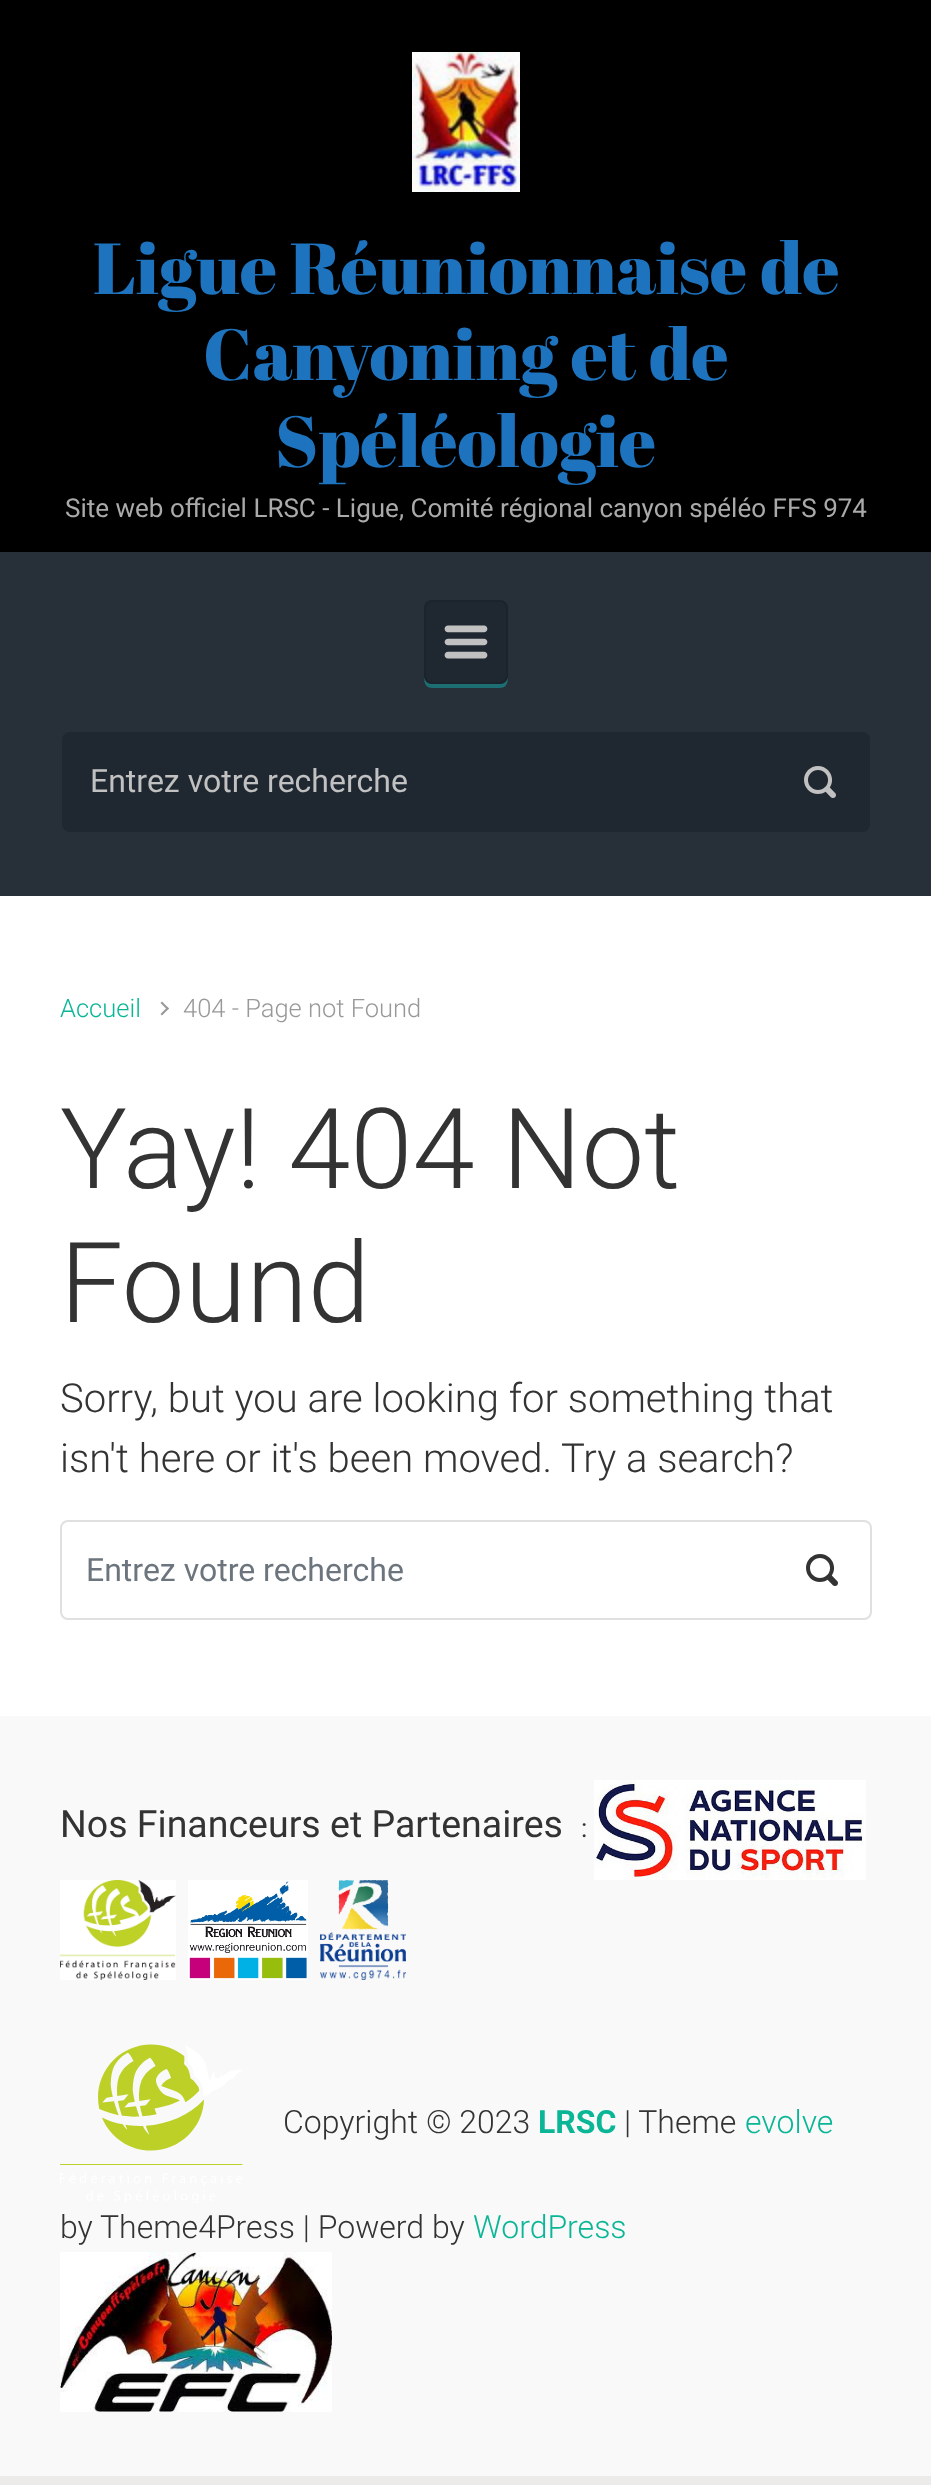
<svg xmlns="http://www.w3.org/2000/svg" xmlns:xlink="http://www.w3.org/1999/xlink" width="931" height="2485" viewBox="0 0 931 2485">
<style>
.cls-1{font:72px Abril Fatface;fill:#1e73be}
.cls-2{font:26px Roboto;fill:#aaaaaa}
.cls-3{font:32px Roboto;fill:#c1c1c1}
.cls-4{font:300 25.5px Roboto;fill:#0bb697}
.cls-5{font:300 25.5px Roboto;fill:#999999}
.cls-6{font:300 112px Roboto;fill:#333333}
.cls-7{font:300 40px Roboto;fill:#333333}
.cls-8{font:32px Roboto;fill:#6c757d}
.cls-9{font:37.5px Roboto;fill:#333333}
.cls-10{font:26px Roboto;fill:#333333}
.cls-11{font:300 32px Roboto;fill:#333333}
.cls-12{font:bold 32px Roboto;fill:#0bb697}
.cls-13{font:300 32px Roboto;fill:#0bb697}
</style>
<rect width="100%" height="100%" fill="#ecebe9"/>
<rect fill="#f9f9f9" x="0" y="1716" width="931" height="760"/>
<rect fill="#000000" x="0" y="0" width="931" height="552"/>
<image xlink:href="image0.png" x="412" y="52" width="108" height="140"/>
<rect fill="#273039" x="0" y="552" width="931" height="344"/>
<path fill="#1d6e72" d="M424 676C424 690 430 688 443 688H489C502 688 508 690 508 676C508 680 504 684 500 684H432C428 684 424 680 424 676Z"/>
<rect fill="#1f2831" stroke="#1b242d" stroke-width="2" x="425" y="601" width="82" height="82" rx="7"/>
<image xlink:href="image1.png" x="444" y="625" width="44" height="34"/>
<rect fill="#1f2831" x="62" y="732" width="808" height="100" rx="8"/>
<image xlink:href="image2.png" x="804" y="766" width="32" height="32"/>
<rect fill="#ffffff" x="0" y="896" width="931" height="820"/>
<path fill="#999999" d="M160.5 1003L162 1001.5L169 1008.5L167.5 1010Z"/>
<path fill="#999999" d="M160.5 1014L167.5 1007L169 1008.5L162 1015.5Z"/>
<rect fill="none" stroke="#e0e0e0" stroke-width="2" x="61" y="1521" width="810" height="98" rx="7"/>
<image xlink:href="image3.png" x="806" y="1554" width="32" height="32"/>
<image xlink:href="image4.png" x="594" y="1780" width="272" height="100"/>
<image xlink:href="image5.png" x="60" y="1880" width="116" height="100"/>
<image xlink:href="image6.png" x="188" y="1880" width="120" height="100"/>
<image xlink:href="image7.png" x="320" y="1880" width="86" height="100"/>
<image xlink:href="image8.png" x="60" y="2044" width="183" height="159"/>
<image xlink:href="image9.png" x="60" y="2252" width="272" height="160"/>
<text class="cls-1" x="93" y="294">Ligue Réunionnaise de</text>
<text class="cls-1" x="203" y="380">Canyoning et de</text>
<text class="cls-1" x="275" y="467">Spéléologie</text>
<text class="cls-2" x="65" y="517">Site web officiel LRSC - Ligue, Comité régional canyon spéléo FFS 974</text>
<text class="cls-3" x="90" y="792">Entrez votre recherche</text>
<text class="cls-4" x="60" y="1017">Accueil</text>
<text class="cls-5" x="183" y="1017">404 - Page not Found</text>
<text class="cls-6"><tspan x="60" y="1188">Yay! 404 Not</tspan><tspan x="60" y="1322">Found</tspan></text>
<text class="cls-7"><tspan x="60" y="1412">Sorry, but you are looking for something that</tspan><tspan x="60" y="1472">isn't here or it's been moved. Try a search?</tspan></text>
<text class="cls-8" x="86" y="1581">Entrez votre recherche</text>
<text class="cls-9" x="60" y="1837">Nos Financeurs et Partenaires</text>
<text class="cls-10" x="581" y="1837">:</text>
<text class="cls-11" x="283" y="2133">Copyright © 2023</text>
<text class="cls-12" x="538" y="2133">LRSC</text>
<text class="cls-11" x="624" y="2133">| Theme</text>
<text class="cls-13" x="745" y="2133">evolve</text>
<text class="cls-11" x="60" y="2238">by Theme4Press | Powerd by</text>
<text class="cls-13" x="473" y="2238">WordPress</text>
</svg>
